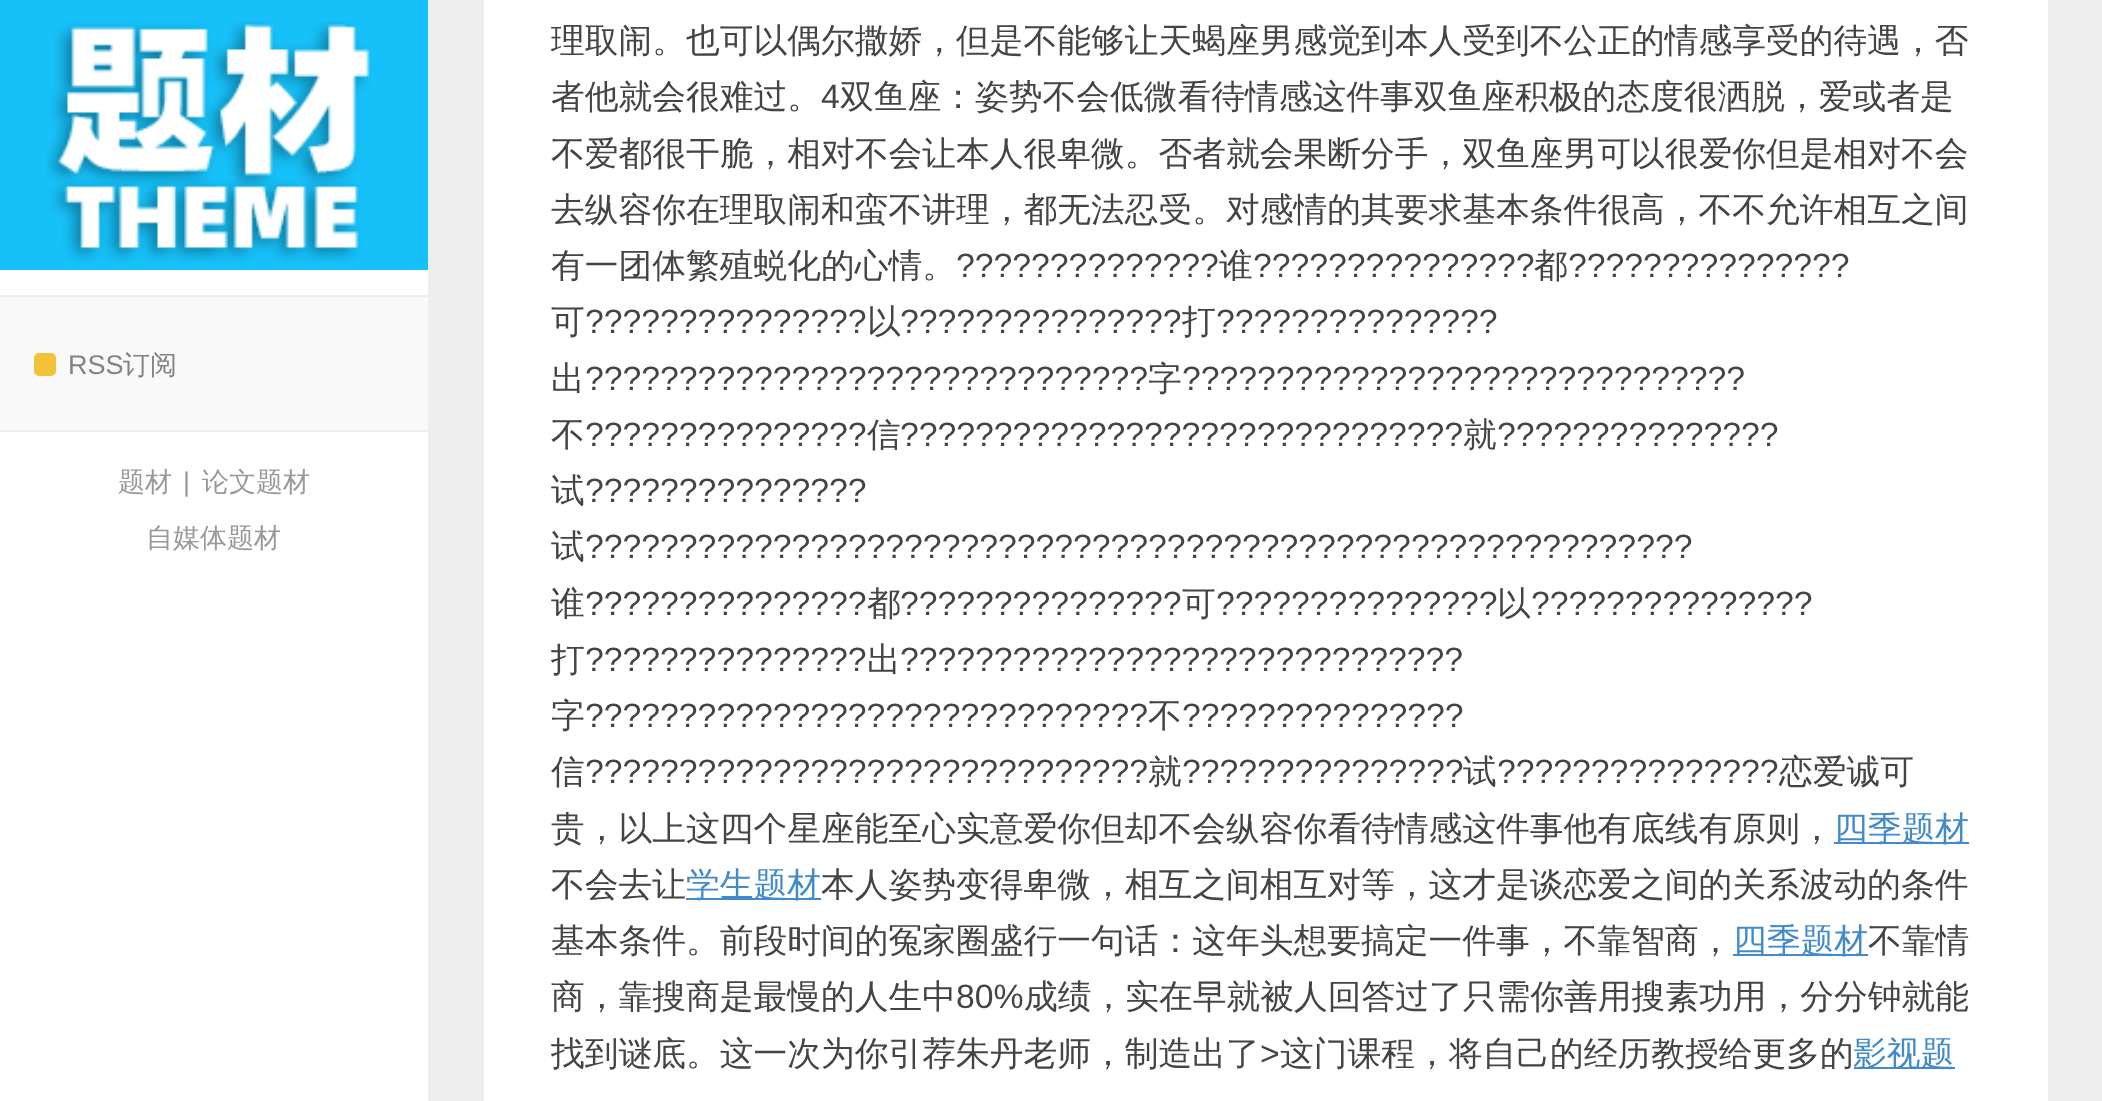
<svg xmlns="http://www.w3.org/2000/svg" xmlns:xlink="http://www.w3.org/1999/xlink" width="2102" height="1101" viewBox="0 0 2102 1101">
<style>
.cls-1{font:27px Liberation Sans;fill:#838383}
.cls-2{font:500 27px WenQuanYi Zen Hei;fill:#838383}
.cls-3{font:500 27px WenQuanYi Zen Hei;fill:#999999}
.cls-4{font:27px Liberation Sans;fill:#999999}
.cls-5{font:500 33.75px WenQuanYi Zen Hei;fill:#444444}
.cls-6{font:33.75px Liberation Sans;fill:#444444}
.cls-7{font:500 33.75px WenQuanYi Zen Hei;fill:#428bca}
</style>
<rect width="100%" height="100%" fill="#eeeeee"/>
<rect fill="#ffffff" x="0" y="270" width="428" height="831"/>
<rect fill="#16c0f8" x="0" y="0" width="428" height="270"/>
<image xlink:href="image0.png" x="46" y="21" width="325" height="241"/>
<rect fill="#eeeeee" x="0" y="295" width="428" height="2"/>
<rect fill="#f9f9f9" x="0" y="297" width="428" height="133"/>
<rect fill="#eeeeee" x="0" y="430" width="428" height="2"/>
<rect fill="#f3c136" x="34" y="353" width="22" height="23" rx="5"/>
<rect fill="#ffffff" x="484" y="0" width="1564" height="1101"/>
<rect fill="#428bca" x="1834" y="842" width="135" height="2"/>
<rect fill="#428bca" x="686" y="898" width="135" height="2"/>
<rect fill="#428bca" x="1733" y="954" width="135" height="2"/>
<rect fill="#428bca" x="1854" y="1067" width="101" height="2"/>
<text class="cls-1" x="68" y="374">RSS</text>
<text class="cls-2" x="123" y="374">订阅</text>
<text class="cls-3" x="118" y="491">题材</text>
<text class="cls-4" x="183" y="491">|</text>
<text class="cls-3" x="202" y="491">论文题材</text>
<text class="cls-3" x="146" y="547">自媒体题材</text>
<text class="cls-5"><tspan x="551" y="52">理取闹。也可以偶尔撒娇，但是不能够让天蝎座男感觉到本人受到不公正的情感享受的待遇，否</tspan><tspan x="551" y="108">者他就会很难过。</tspan></text>
<text class="cls-6" x="821" y="108">4</text>
<text class="cls-5" x="840" y="108">双鱼座：姿势不会低微看待情感这件事双鱼座积极的态度很洒脱，爱或者是</text>
<text class="cls-5"><tspan x="551" y="165">不爱都很干脆，相对不会让本人很卑微。否者就会果断分手，双鱼座男可以很爱你但是相对不会</tspan><tspan x="551" y="221">去纵容你在理取闹和蛮不讲理，都无法忍受。对感情的其要求基本条件很高，不不允许相互之间</tspan><tspan x="551" y="277">有一团体繁殖蜕化的心情。</tspan></text>
<text class="cls-6" x="956" y="277">??????????????</text>
<text class="cls-5" x="1219" y="277">谁</text>
<text class="cls-6" x="1253" y="277">???????????????</text>
<text class="cls-5" x="1534" y="277">都</text>
<text class="cls-6" x="1568" y="277">???????????????</text>
<text class="cls-5" x="551" y="333">可</text>
<text class="cls-6" x="585" y="333">???????????????</text>
<text class="cls-5" x="867" y="333">以</text>
<text class="cls-6" x="900" y="333">???????????????</text>
<text class="cls-5" x="1182" y="333">打</text>
<text class="cls-6" x="1216" y="333">???????????????</text>
<text class="cls-5" x="551" y="390">出</text>
<text class="cls-6" x="585" y="390">??????????????????????????????</text>
<text class="cls-5" x="1148" y="390">字</text>
<text class="cls-6" x="1182" y="390">??????????????????????????????</text>
<text class="cls-5" x="551" y="446">不</text>
<text class="cls-6" x="585" y="446">???????????????</text>
<text class="cls-5" x="867" y="446">信</text>
<text class="cls-6" x="900" y="446">??????????????????????????????</text>
<text class="cls-5" x="1463" y="446">就</text>
<text class="cls-6" x="1497" y="446">???????????????</text>
<text class="cls-5" x="551" y="502">试</text>
<text class="cls-6" x="585" y="502">???????????????</text>
<text class="cls-5" x="551" y="558">试</text>
<text class="cls-6" x="585" y="558">???????????????????????????????????????????????????????????</text>
<text class="cls-5" x="551" y="615">谁</text>
<text class="cls-6" x="585" y="615">???????????????</text>
<text class="cls-5" x="867" y="615">都</text>
<text class="cls-6" x="900" y="615">???????????????</text>
<text class="cls-5" x="1182" y="615">可</text>
<text class="cls-6" x="1216" y="615">???????????????</text>
<text class="cls-5" x="1497" y="615">以</text>
<text class="cls-6" x="1531" y="615">???????????????</text>
<text class="cls-5" x="551" y="671">打</text>
<text class="cls-6" x="585" y="671">???????????????</text>
<text class="cls-5" x="867" y="671">出</text>
<text class="cls-6" x="900" y="671">??????????????????????????????</text>
<text class="cls-5" x="551" y="727">字</text>
<text class="cls-6" x="585" y="727">??????????????????????????????</text>
<text class="cls-5" x="1148" y="727">不</text>
<text class="cls-6" x="1182" y="727">???????????????</text>
<text class="cls-5" x="551" y="783">信</text>
<text class="cls-6" x="585" y="783">??????????????????????????????</text>
<text class="cls-5" x="1148" y="783">就</text>
<text class="cls-6" x="1182" y="783">???????????????</text>
<text class="cls-5" x="1463" y="783">试</text>
<text class="cls-6" x="1497" y="783">???????????????</text>
<text class="cls-5" x="1779" y="783">恋爱诚可</text>
<text class="cls-5" x="551" y="840">贵，以上这四个星座能至心实意爱你但却不会纵容你看待情感这件事他有底线有原则，</text>
<text class="cls-7" x="1834" y="840">四季题材</text>
<text class="cls-5" x="551" y="896">不会去让</text>
<text class="cls-7" x="686" y="896">学生题材</text>
<text class="cls-5" x="821" y="896">本人姿势变得卑微，相互之间相互对等，这才是谈恋爱之间的关系波动的条件</text>
<text class="cls-5" x="551" y="952">基本条件。前段时间的冤家圈盛行一句话：这年头想要搞定一件事，不靠智商，</text>
<text class="cls-7" x="1733" y="952">四季题材</text>
<text class="cls-5" x="1868" y="952">不靠情</text>
<text class="cls-5" x="551" y="1008">商，靠搜商是最慢的人生中</text>
<text class="cls-6" x="956" y="1008">80%</text>
<text class="cls-5" x="1024" y="1008">成绩，实在早就被人回答过了只需你善用搜素功用，分分钟就能</text>
<text class="cls-5" x="551" y="1065">找到谜底。这一次为你引荐朱丹老师，制造出了</text>
<text class="cls-6" x="1260" y="1065">&gt;</text>
<text class="cls-5" x="1280" y="1065">这门课程，将自己的经历教授给更多的</text>
<text class="cls-7" x="1853" y="1065">影视题</text>
</svg>
